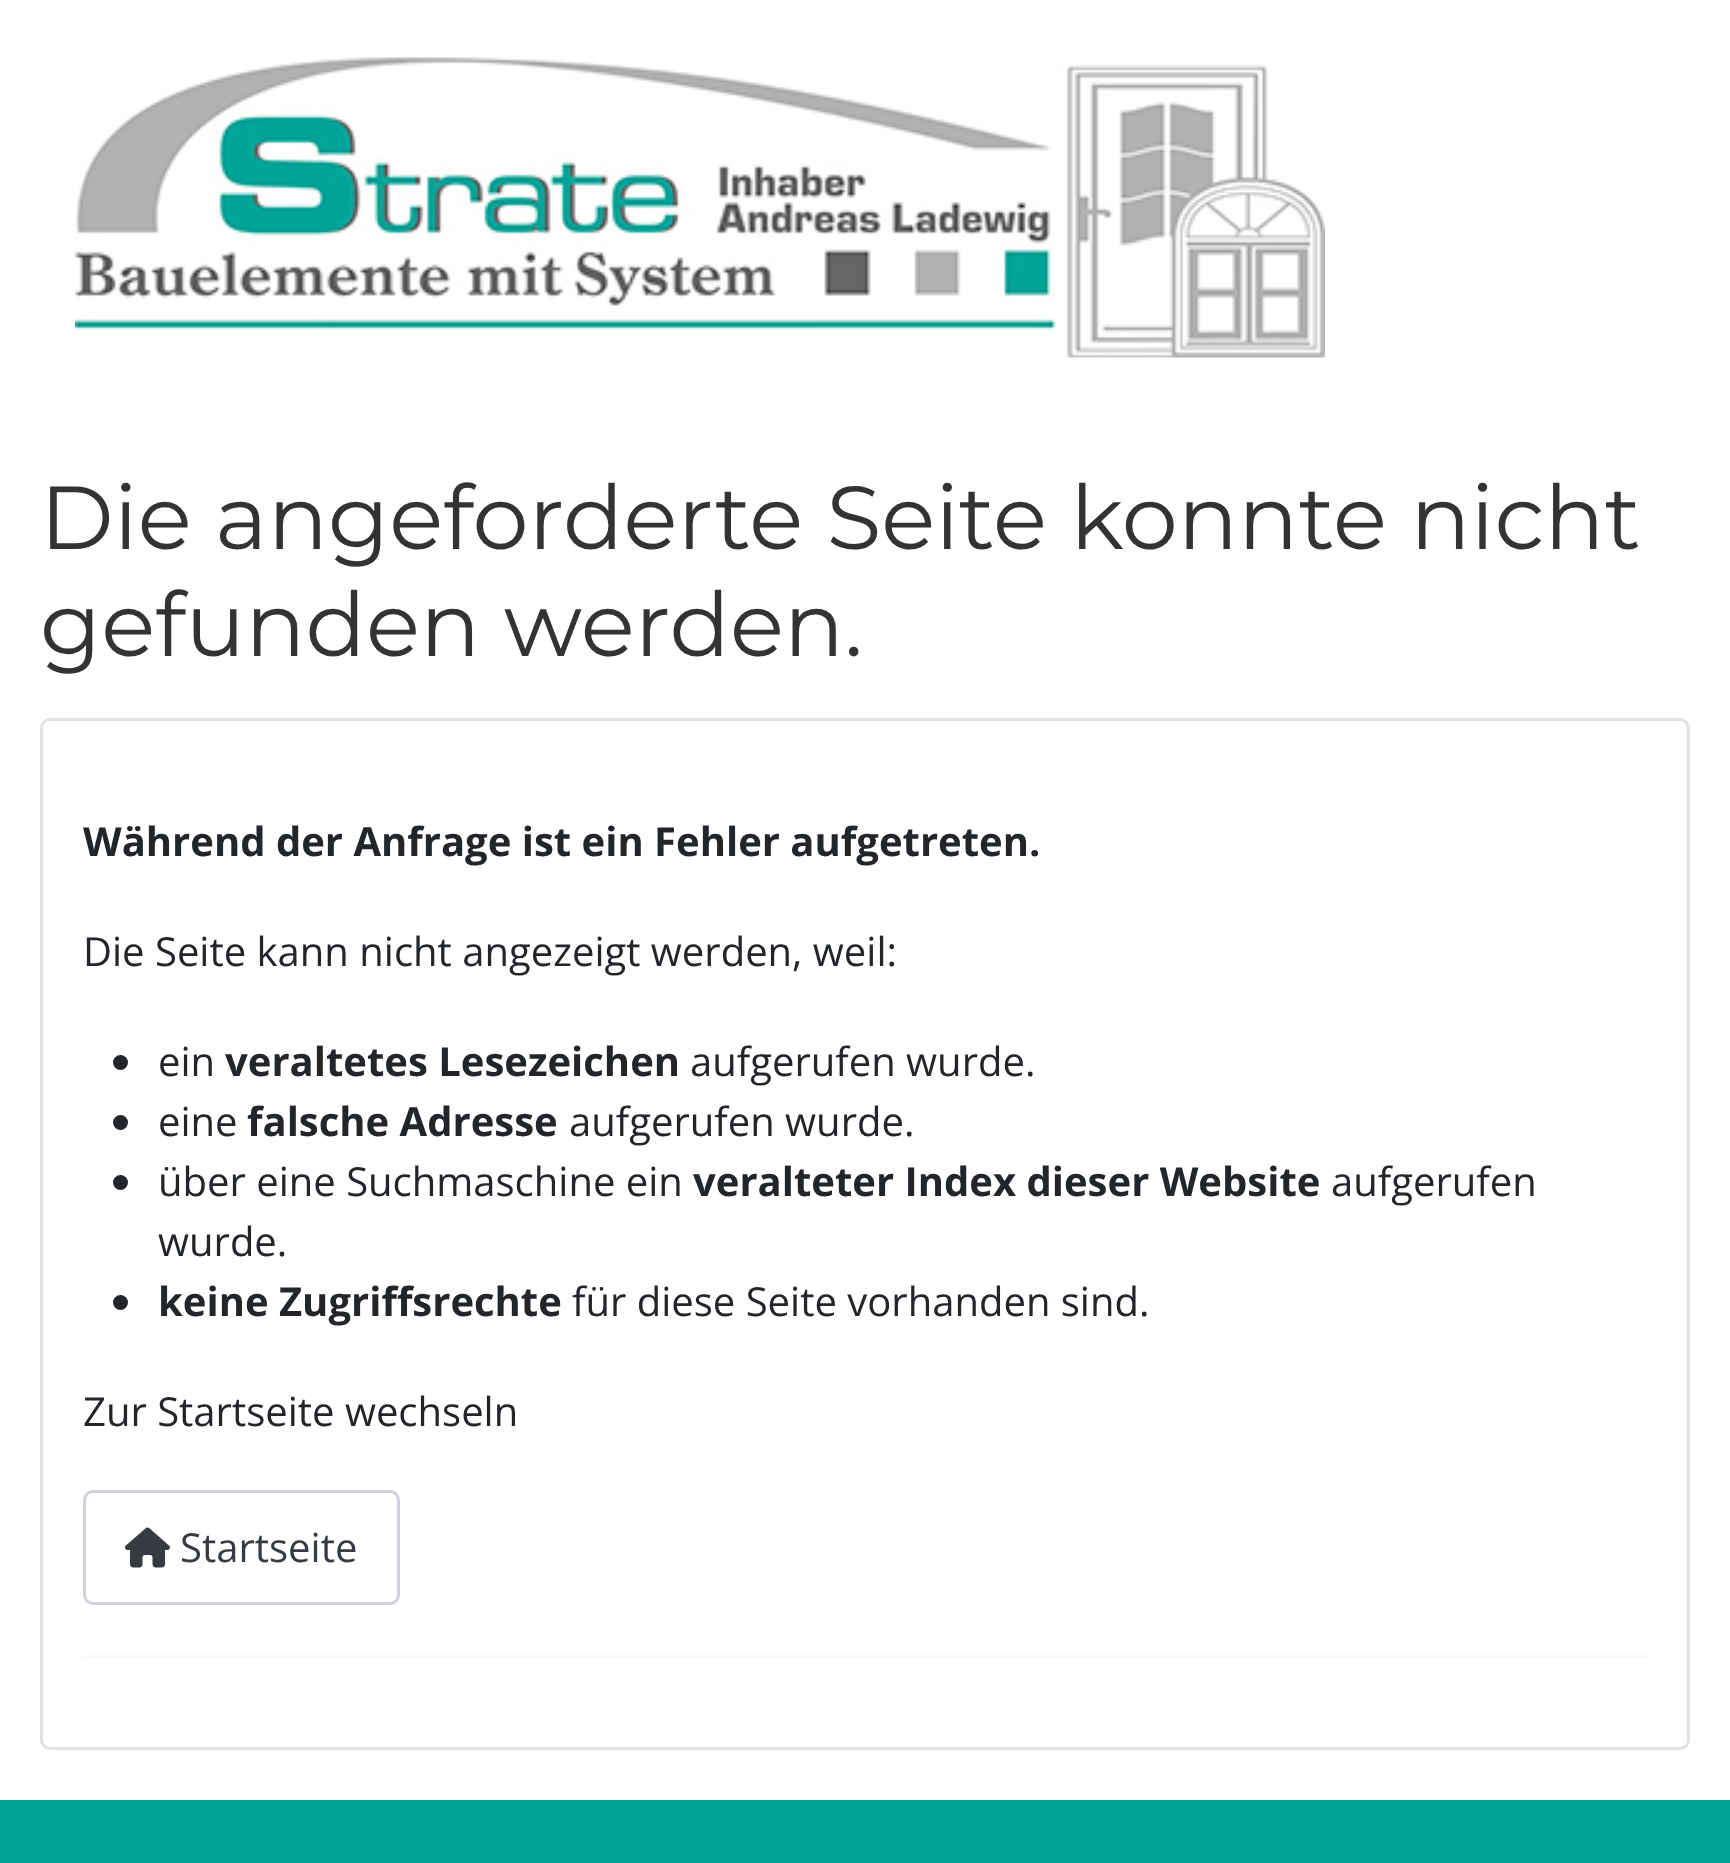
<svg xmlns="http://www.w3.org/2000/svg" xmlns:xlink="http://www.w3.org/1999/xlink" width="1730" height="1863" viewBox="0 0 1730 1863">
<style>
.cls-1{font:100 89.25px Montserrat;fill:#333333}
.cls-2{font:bold 40px Open Sans;fill:#22262a}
.cls-3{font:40px Open Sans;fill:#22262a}
.cls-4{font:40px Open Sans;fill:#353b41}
</style>
<rect width="100%" height="100%" fill="#ffffff"/>
<image xlink:href="image0.png" x="75" y="57" width="1250" height="301"/>
<rect fill="none" stroke="#dfe3e7" stroke-width="3" x="41.5" y="719.5" width="1647" height="1029" rx="8.5"/>
<circle fill="#22262a" cx="120.5" cy="1062.5" r="7.5"/>
<circle fill="#22262a" cx="120.5" cy="1122.5" r="7.5"/>
<circle fill="#22262a" cx="120.5" cy="1182.5" r="7.5"/>
<circle fill="#22262a" cx="120.5" cy="1302.5" r="7.5"/>
<rect fill="none" stroke="#ced4da" stroke-width="3" x="84.5" y="1491.5" width="314" height="112" rx="8.5"/>
<image xlink:href="image1.png" x="125" y="1527" width="45" height="41"/>
<rect fill="#f9f9f9" x="83" y="1655" width="1565" height="3"/>
<rect fill="#00a597" x="0" y="1800" width="1730" height="63"/>
<text class="cls-1"><tspan x="40" y="549">Die angeforderte Seite konnte nicht</tspan><tspan x="40" y="656">gefunden werden.</tspan></text>
<text class="cls-2" x="83" y="856">Während der Anfrage ist ein Fehler aufgetreten.</text>
<text class="cls-3" x="83" y="966">Die Seite kann nicht angezeigt werden, weil:</text>
<text class="cls-3" x="158" y="1076">ein</text>
<text class="cls-2" x="225" y="1076">veraltetes Lesezeichen</text>
<text class="cls-3" x="690" y="1076">aufgerufen wurde.</text>
<text class="cls-3" x="158" y="1136">eine</text>
<text class="cls-2" x="247" y="1136">falsche Adresse</text>
<text class="cls-3" x="569" y="1136">aufgerufen wurde.</text>
<text class="cls-3" x="158" y="1196">über eine Suchmaschine ein</text>
<text class="cls-2" x="693" y="1196">veralteter Index dieser Website</text>
<text class="cls-3" x="1331" y="1196">aufgerufen</text>
<text class="cls-3" x="158" y="1256">wurde.</text>
<text class="cls-2" x="158" y="1316">keine Zugriffsrechte</text>
<text class="cls-3" x="572" y="1316">für diese Seite vorhanden sind.</text>
<text class="cls-3" x="83" y="1426">Zur Startseite wechseln</text>
<text class="cls-4" x="180" y="1562">Startseite</text>
</svg>
